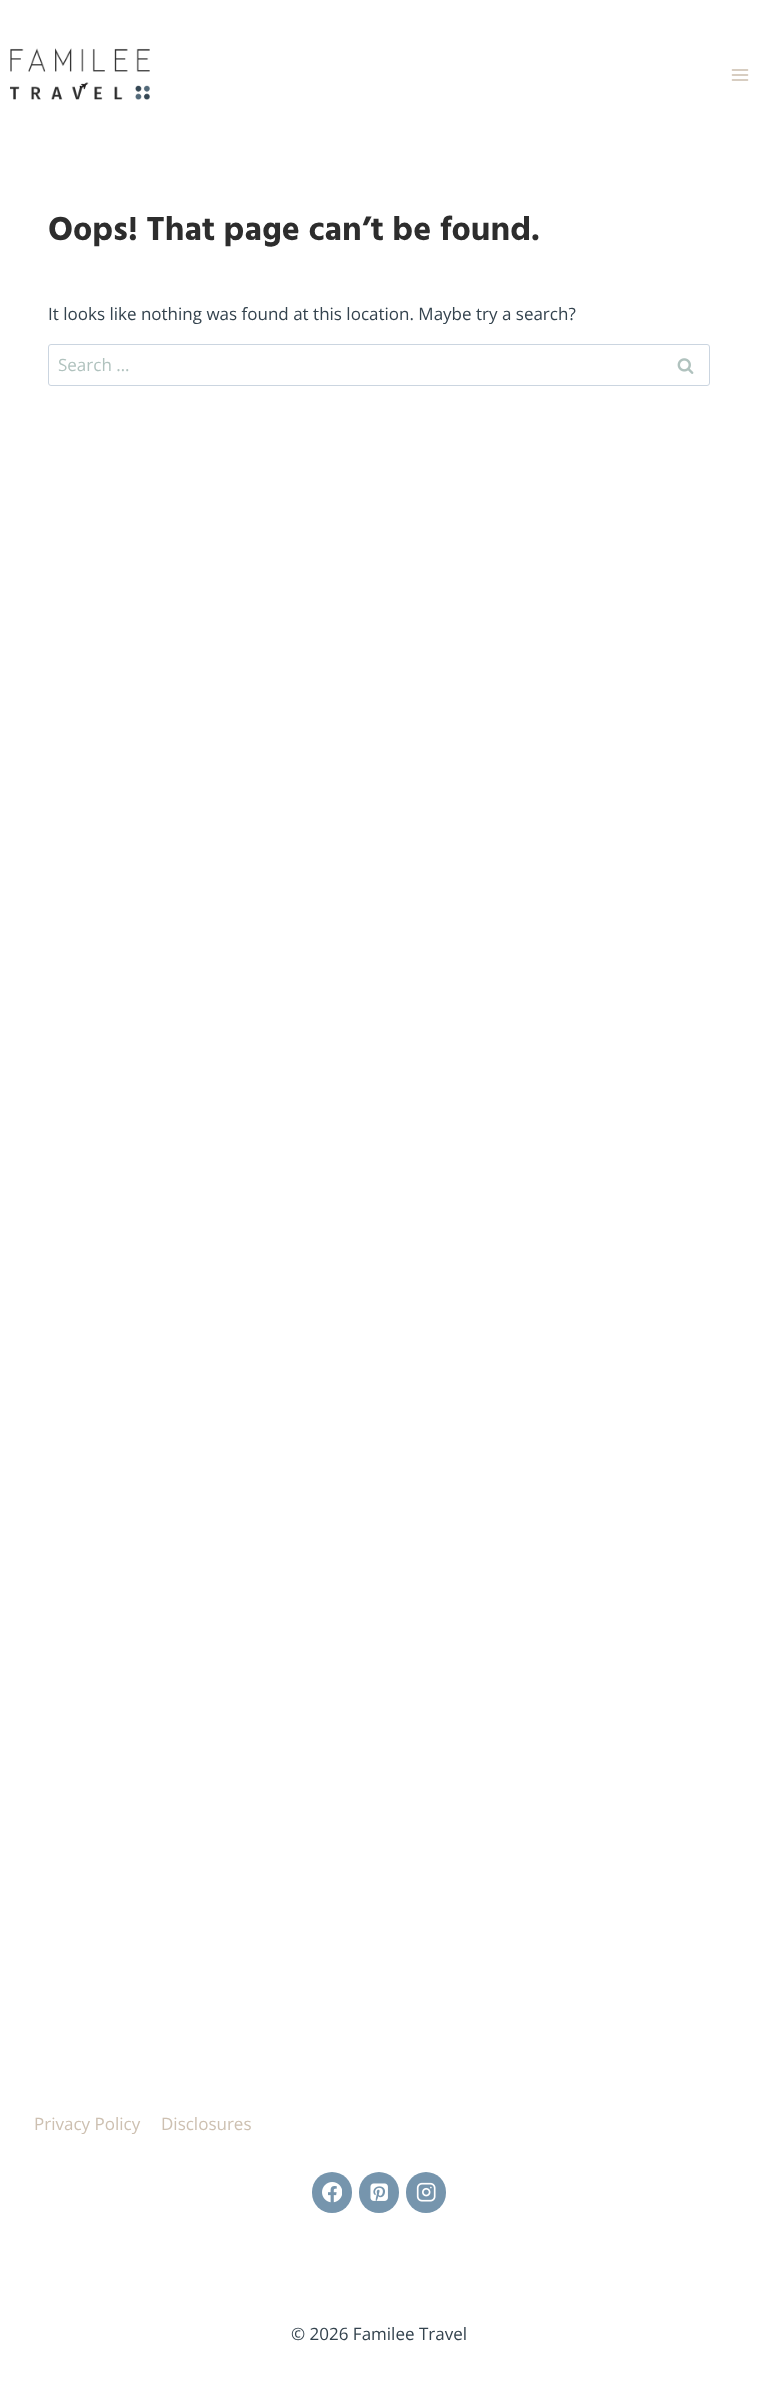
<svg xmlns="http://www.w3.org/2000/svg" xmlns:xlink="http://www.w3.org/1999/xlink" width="758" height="2394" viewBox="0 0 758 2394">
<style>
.cls-1{font:bold 34px Hind;fill:#2d2d2d}
.cls-2{font:17px Open Sans;fill:#34434e}
.cls-3{font:17px Open Sans;fill:#b0c2be}
.cls-4{font:17px Open Sans;fill:#cdc0b1}
</style>
<rect width="100%" height="100%" fill="#ffffff"/>
<image xlink:href="image0.png" x="10" y="48" width="140" height="52"/>
<image xlink:href="image1.png" x="731" y="69" width="18" height="12"/>
<rect fill="none" stroke="#cbd5e0" x="48.5" y="344.5" width="661" height="41" rx="2.5"/>
<image xlink:href="image2.png" x="677" y="358" width="17" height="16"/>
<rect fill="#7695ad" x="312" y="2172" width="40" height="41" rx="20"/>
<image xlink:href="image3.png" x="322" y="2182" width="20" height="21"/>
<rect fill="#7695ad" x="359" y="2172" width="40" height="41" rx="20"/>
<image xlink:href="image4.png" x="370" y="2183" width="18" height="18"/>
<rect fill="#7695ad" x="406" y="2172" width="40" height="41" rx="20"/>
<image xlink:href="image5.png" x="416" y="2182" width="20" height="20"/>
<text class="cls-1" x="48" y="240">Oops! That page can’t be found.</text>
<text class="cls-2" x="48" y="320">It looks like nothing was found at this location. Maybe try a search?</text>
<text class="cls-3" x="58" y="371">Search …</text>
<text class="cls-4" x="34" y="2130">Privacy Policy</text>
<text class="cls-4" x="161" y="2130">Disclosures</text>
<text class="cls-2" x="291" y="2340">© 2026 Familee Travel</text>
</svg>
